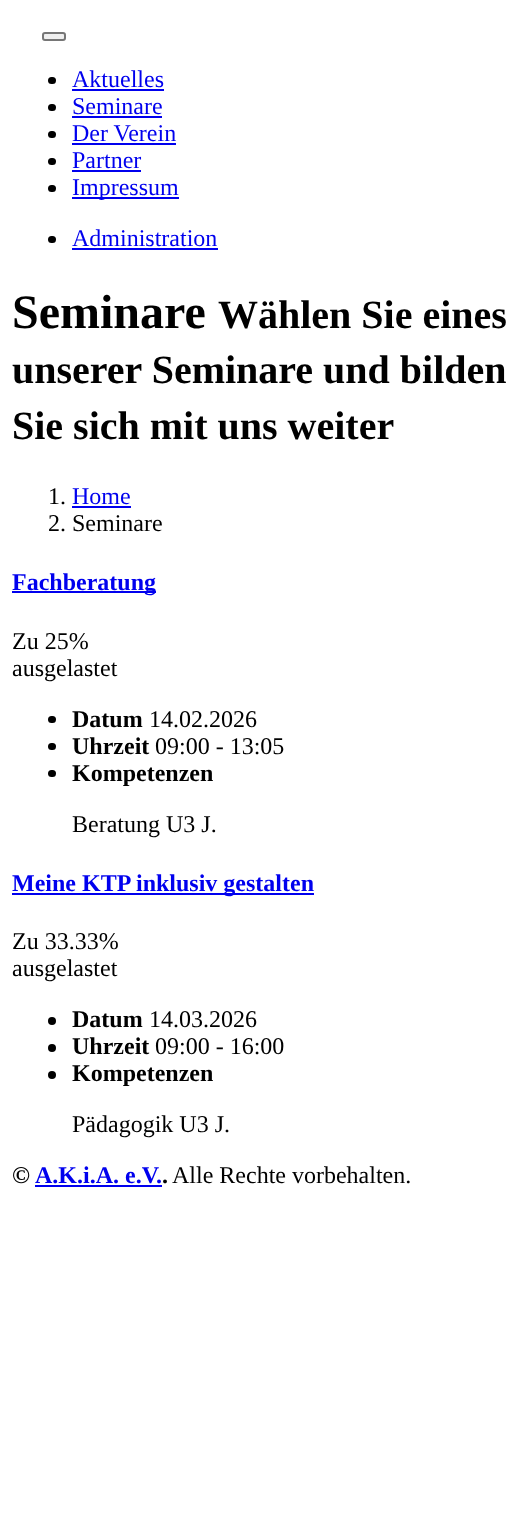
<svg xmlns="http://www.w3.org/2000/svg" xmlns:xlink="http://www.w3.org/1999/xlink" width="528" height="1518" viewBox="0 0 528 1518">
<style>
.cls-1{font:24px Liberation Serif;fill:#0000ee}
.cls-2{font:bold 48px Liberation Serif;fill:#000000}
.cls-3{font:bold 40px Liberation Serif;fill:#000000}
.cls-4{font:24px Liberation Serif;fill:#000000}
.cls-5{font:bold 24px Liberation Serif;fill:#0000ee}
.cls-6{font:bold 24px Liberation Serif;fill:#000000}
</style>
<rect width="100%" height="100%" fill="#ffffff"/>
<rect fill="#efefef" stroke="#767676" stroke-width="2" x="43" y="33" width="22" height="7" rx="2"/>
<rect fill="#000000" x="48" y="77" width="8" height="7" rx="3.5"/>
<rect fill="#0000ee" x="72" y="89" width="92" height="2"/>
<rect fill="#000000" x="48" y="104" width="8" height="7" rx="3.5"/>
<rect fill="#0000ee" x="72" y="116" width="90" height="2"/>
<rect fill="#000000" x="48" y="131" width="8" height="7" rx="3.5"/>
<rect fill="#0000ee" x="72" y="143" width="104" height="2"/>
<rect fill="#000000" x="48" y="158" width="8" height="7" rx="3.5"/>
<rect fill="#0000ee" x="72" y="170" width="69" height="2"/>
<rect fill="#000000" x="48" y="185" width="8" height="7" rx="3.5"/>
<rect fill="#0000ee" x="72" y="197" width="107" height="2"/>
<rect fill="#000000" x="48" y="236" width="8" height="7" rx="3.5"/>
<rect fill="#0000ee" x="72" y="248" width="146" height="2"/>
<rect fill="#0000ee" x="72" y="506" width="59" height="2"/>
<rect fill="#0000ee" x="12" y="591" width="144" height="2"/>
<rect fill="#000000" x="48" y="716" width="8" height="7" rx="3.5"/>
<rect fill="#000000" x="48" y="743" width="8" height="7" rx="3.5"/>
<rect fill="#000000" x="48" y="770" width="8" height="7" rx="3.5"/>
<rect fill="#0000ee" x="12" y="893" width="302" height="2"/>
<circle fill="#000000" cx="52" cy="1021" r="4"/>
<circle fill="#000000" cx="52" cy="1048" r="4"/>
<circle fill="#000000" cx="52" cy="1075" r="4"/>
<rect fill="#0000ee" x="35" y="1185" width="127" height="2"/>
<text class="cls-1"><tspan x="72" y="87">Aktuelles</tspan><tspan x="72" y="114">Seminare</tspan><tspan x="72" y="141">Der Verein</tspan><tspan x="72" y="168">Partner</tspan><tspan x="72" y="195">Impressum</tspan></text>
<text class="cls-1" x="72" y="246">Administration</text>
<text class="cls-2" x="12" y="328">Seminare</text>
<text class="cls-3" x="218" y="328">Wählen Sie eines</text>
<text class="cls-3"><tspan x="12" y="383">unserer Seminare und bilden</tspan><tspan x="12" y="439">Sie sich mit uns weiter</tspan></text>
<text class="cls-4" x="48" y="504">1.</text>
<text class="cls-1" x="72" y="504">Home</text>
<text class="cls-4" x="48" y="531">2. Seminare</text>
<text class="cls-5" x="12" y="590">Fachberatung</text>
<text class="cls-4"><tspan x="12" y="649">Zu 25%</tspan><tspan x="12" y="676">ausgelastet</tspan></text>
<text class="cls-6" x="72" y="727">Datum</text>
<text class="cls-4" x="149" y="727">14.02.2026</text>
<text class="cls-6" x="72" y="754">Uhrzeit</text>
<text class="cls-4" x="155" y="754">09:00 - 13:05</text>
<text class="cls-6" x="72" y="781">Kompetenzen</text>
<text class="cls-4" x="72" y="832">Beratung U3 J.</text>
<text class="cls-5" x="12" y="891">Meine KTP inklusiv gestalten</text>
<text class="cls-4"><tspan x="12" y="949">Zu 33.33%</tspan><tspan x="12" y="976">ausgelastet</tspan></text>
<text class="cls-6" x="72" y="1027">Datum</text>
<text class="cls-4" x="149" y="1027">14.03.2026</text>
<text class="cls-6" x="72" y="1054">Uhrzeit</text>
<text class="cls-4" x="155" y="1054">09:00 - 16:00</text>
<text class="cls-6" x="72" y="1081">Kompetenzen</text>
<text class="cls-4" x="72" y="1132">Pädagogik U3 J.</text>
<text class="cls-6" x="12" y="1183">©</text>
<text class="cls-5" x="35" y="1183">A.K.i.A. e.V.</text>
<text class="cls-6" x="162" y="1183">.</text>
<text class="cls-4" x="172" y="1183">Alle Rechte vorbehalten.</text>
</svg>
